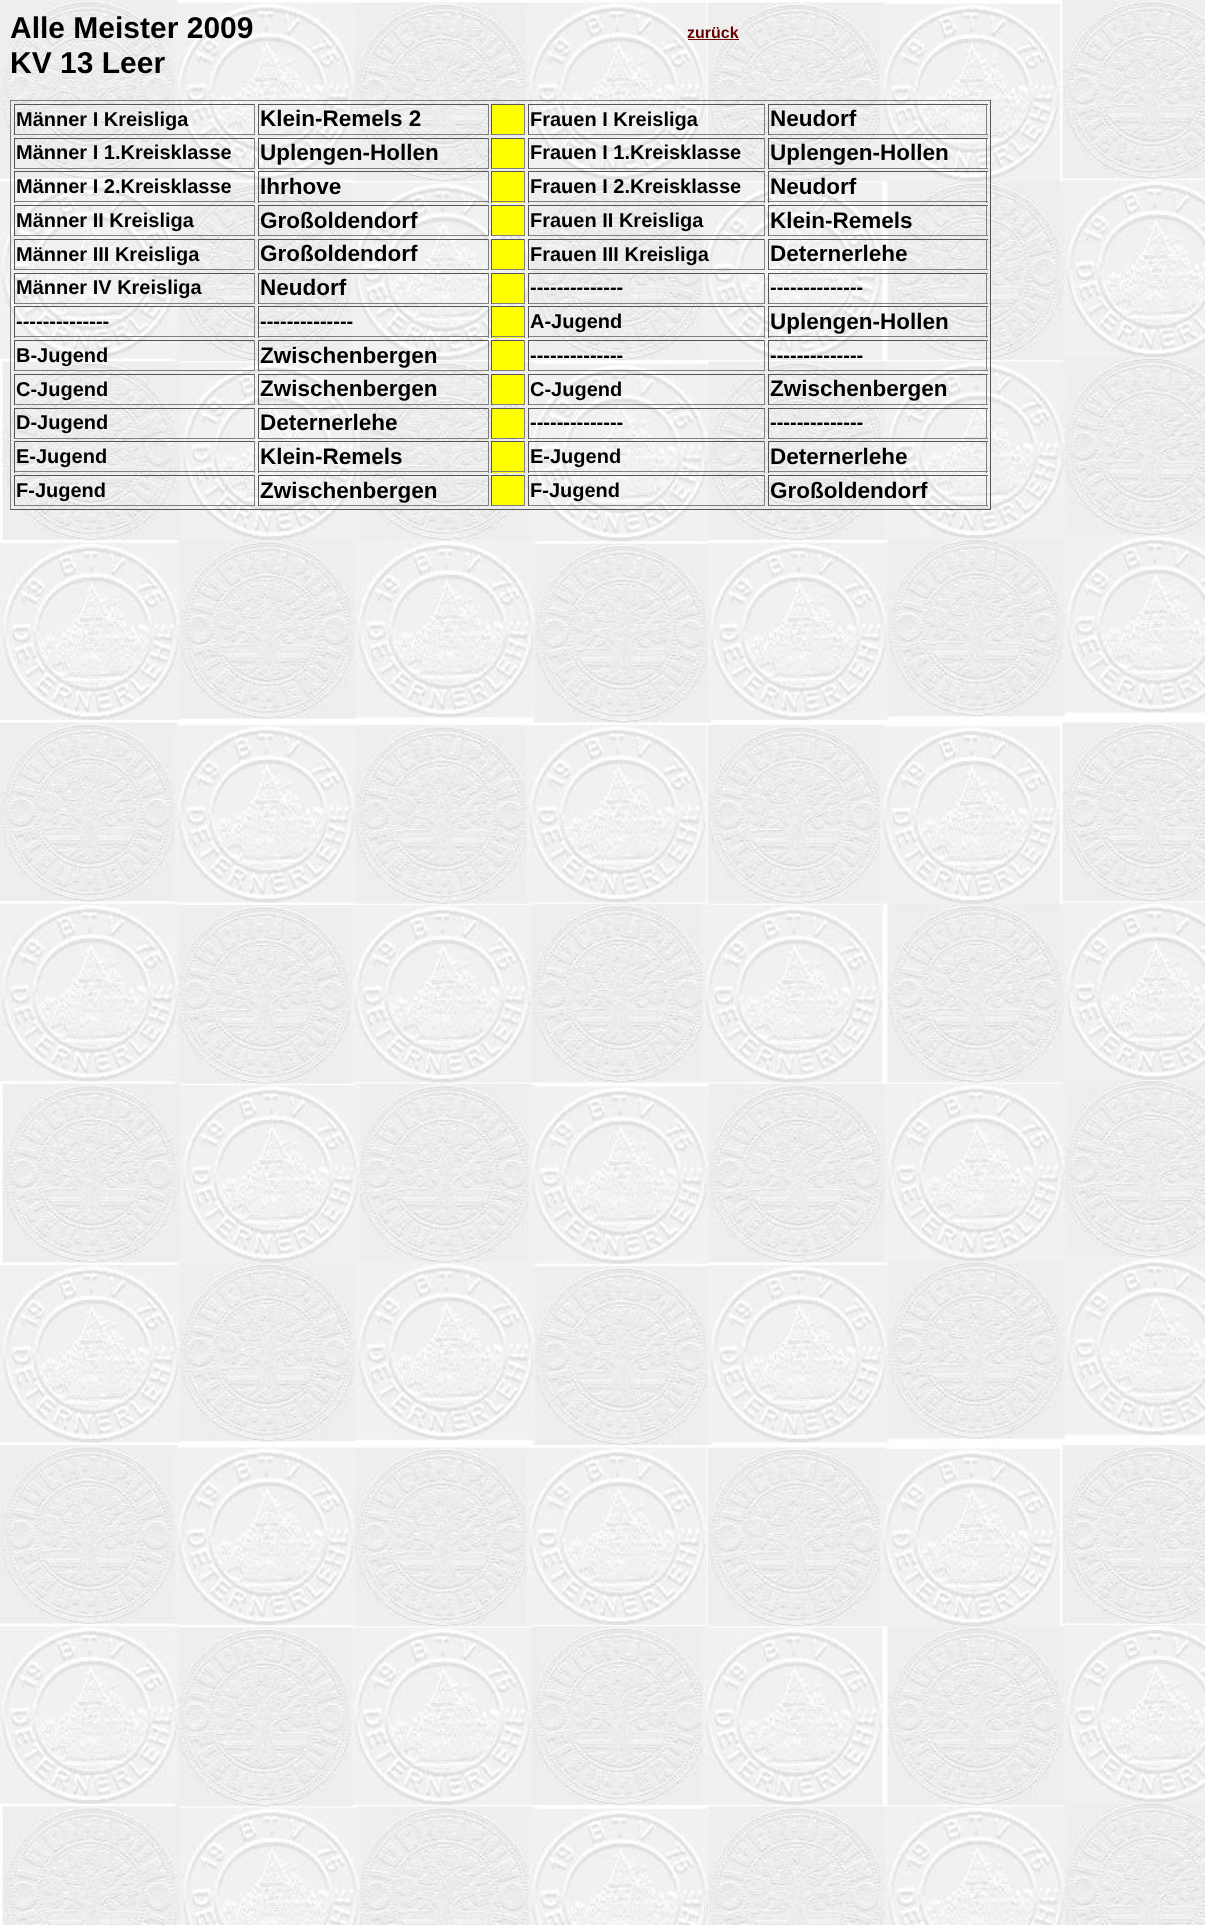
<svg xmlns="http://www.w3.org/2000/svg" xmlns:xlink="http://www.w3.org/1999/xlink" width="1205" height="1925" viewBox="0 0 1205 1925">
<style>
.cls-1{font:bold 30px Liberation Sans;fill:#000000}
.cls-2{font:bold 16px Liberation Sans;fill:#660000}
.cls-3{font:bold 20px Liberation Sans;fill:#000000}
.cls-4{font:bold 22.5px Liberation Sans;fill:#000000}
</style>
<rect width="100%" height="100%" fill="#ffffff"/>
<image xlink:href="image0.png" x="0" y="0" width="1205" height="1925"/>
<rect fill="#660000" x="688" y="39" width="51" height="1"/>
<rect fill="#808080" x="10" y="100" width="981" height="1"/>
<rect fill="#555555" x="990" y="100" width="1" height="410"/>
<rect fill="#555555" x="10" y="509" width="981" height="1"/>
<rect fill="#808080" x="10" y="100" width="1" height="410"/>
<rect fill="#555555" x="14" y="104" width="241" height="1"/>
<rect fill="#808080" x="254" y="104" width="1" height="31"/>
<rect fill="#808080" x="14" y="134" width="241" height="1"/>
<rect fill="#555555" x="14" y="104" width="1" height="31"/>
<rect fill="#555555" x="258" y="104" width="231" height="1"/>
<rect fill="#808080" x="488" y="104" width="1" height="31"/>
<rect fill="#808080" x="258" y="134" width="231" height="1"/>
<rect fill="#555555" x="258" y="104" width="1" height="31"/>
<rect fill="#ffff00" x="492" y="105" width="32" height="29"/>
<rect fill="#555555" x="491" y="104" width="34" height="1"/>
<rect fill="#808080" x="524" y="104" width="1" height="31"/>
<rect fill="#808080" x="491" y="134" width="34" height="1"/>
<rect fill="#555555" x="491" y="104" width="1" height="31"/>
<rect fill="#555555" x="528" y="104" width="237" height="1"/>
<rect fill="#808080" x="764" y="104" width="1" height="31"/>
<rect fill="#808080" x="528" y="134" width="237" height="1"/>
<rect fill="#555555" x="528" y="104" width="1" height="31"/>
<rect fill="#555555" x="768" y="104" width="220" height="1"/>
<rect fill="#808080" x="986" y="104" width="1" height="31"/>
<rect fill="#808080" x="768" y="134" width="220" height="1"/>
<rect fill="#555555" x="768" y="104" width="1" height="31"/>
<rect fill="#555555" x="14" y="138" width="241" height="1"/>
<rect fill="#808080" x="254" y="138" width="1" height="31"/>
<rect fill="#808080" x="14" y="168" width="241" height="1"/>
<rect fill="#555555" x="14" y="138" width="1" height="31"/>
<rect fill="#555555" x="258" y="138" width="231" height="1"/>
<rect fill="#808080" x="488" y="138" width="1" height="31"/>
<rect fill="#808080" x="258" y="168" width="231" height="1"/>
<rect fill="#555555" x="258" y="138" width="1" height="31"/>
<rect fill="#ffff00" x="492" y="139" width="32" height="29"/>
<rect fill="#555555" x="491" y="138" width="34" height="1"/>
<rect fill="#808080" x="524" y="138" width="1" height="31"/>
<rect fill="#808080" x="491" y="168" width="34" height="1"/>
<rect fill="#555555" x="491" y="138" width="1" height="31"/>
<rect fill="#555555" x="528" y="138" width="237" height="1"/>
<rect fill="#808080" x="764" y="138" width="1" height="31"/>
<rect fill="#808080" x="528" y="168" width="237" height="1"/>
<rect fill="#555555" x="528" y="138" width="1" height="31"/>
<rect fill="#555555" x="768" y="138" width="220" height="1"/>
<rect fill="#808080" x="986" y="138" width="1" height="31"/>
<rect fill="#808080" x="768" y="168" width="220" height="1"/>
<rect fill="#555555" x="768" y="138" width="1" height="31"/>
<rect fill="#555555" x="14" y="171" width="241" height="1"/>
<rect fill="#808080" x="254" y="171" width="1" height="32"/>
<rect fill="#808080" x="14" y="201" width="241" height="1"/>
<rect fill="#555555" x="14" y="171" width="1" height="32"/>
<rect fill="#555555" x="258" y="171" width="231" height="1"/>
<rect fill="#808080" x="488" y="171" width="1" height="32"/>
<rect fill="#808080" x="258" y="201" width="231" height="1"/>
<rect fill="#555555" x="258" y="171" width="1" height="32"/>
<rect fill="#ffff00" x="492" y="172" width="32" height="31"/>
<rect fill="#555555" x="491" y="171" width="34" height="1"/>
<rect fill="#808080" x="524" y="171" width="1" height="32"/>
<rect fill="#808080" x="491" y="201" width="34" height="1"/>
<rect fill="#555555" x="491" y="171" width="1" height="32"/>
<rect fill="#555555" x="528" y="171" width="237" height="1"/>
<rect fill="#808080" x="764" y="171" width="1" height="32"/>
<rect fill="#808080" x="528" y="201" width="237" height="1"/>
<rect fill="#555555" x="528" y="171" width="1" height="32"/>
<rect fill="#555555" x="768" y="171" width="220" height="1"/>
<rect fill="#808080" x="986" y="171" width="1" height="32"/>
<rect fill="#808080" x="768" y="201" width="220" height="1"/>
<rect fill="#555555" x="768" y="171" width="1" height="32"/>
<rect fill="#555555" x="14" y="205" width="241" height="1"/>
<rect fill="#808080" x="254" y="205" width="1" height="31"/>
<rect fill="#808080" x="14" y="235" width="241" height="1"/>
<rect fill="#555555" x="14" y="205" width="1" height="31"/>
<rect fill="#555555" x="258" y="205" width="231" height="1"/>
<rect fill="#808080" x="488" y="205" width="1" height="31"/>
<rect fill="#808080" x="258" y="235" width="231" height="1"/>
<rect fill="#555555" x="258" y="205" width="1" height="31"/>
<rect fill="#ffff00" x="492" y="206" width="32" height="29"/>
<rect fill="#555555" x="491" y="205" width="34" height="1"/>
<rect fill="#808080" x="524" y="205" width="1" height="31"/>
<rect fill="#808080" x="491" y="235" width="34" height="1"/>
<rect fill="#555555" x="491" y="205" width="1" height="31"/>
<rect fill="#555555" x="528" y="205" width="237" height="1"/>
<rect fill="#808080" x="764" y="205" width="1" height="31"/>
<rect fill="#808080" x="528" y="235" width="237" height="1"/>
<rect fill="#555555" x="528" y="205" width="1" height="31"/>
<rect fill="#555555" x="768" y="205" width="220" height="1"/>
<rect fill="#808080" x="986" y="205" width="1" height="31"/>
<rect fill="#808080" x="768" y="235" width="220" height="1"/>
<rect fill="#555555" x="768" y="205" width="1" height="31"/>
<rect fill="#555555" x="14" y="239" width="241" height="1"/>
<rect fill="#808080" x="254" y="239" width="1" height="31"/>
<rect fill="#808080" x="14" y="269" width="241" height="1"/>
<rect fill="#555555" x="14" y="239" width="1" height="31"/>
<rect fill="#555555" x="258" y="239" width="231" height="1"/>
<rect fill="#808080" x="488" y="239" width="1" height="31"/>
<rect fill="#808080" x="258" y="269" width="231" height="1"/>
<rect fill="#555555" x="258" y="239" width="1" height="31"/>
<rect fill="#ffff00" x="492" y="240" width="32" height="29"/>
<rect fill="#555555" x="491" y="239" width="34" height="1"/>
<rect fill="#808080" x="524" y="239" width="1" height="31"/>
<rect fill="#808080" x="491" y="269" width="34" height="1"/>
<rect fill="#555555" x="491" y="239" width="1" height="31"/>
<rect fill="#555555" x="528" y="239" width="237" height="1"/>
<rect fill="#808080" x="764" y="239" width="1" height="31"/>
<rect fill="#808080" x="528" y="269" width="237" height="1"/>
<rect fill="#555555" x="528" y="239" width="1" height="31"/>
<rect fill="#555555" x="768" y="239" width="220" height="1"/>
<rect fill="#808080" x="986" y="239" width="1" height="31"/>
<rect fill="#808080" x="768" y="269" width="220" height="1"/>
<rect fill="#555555" x="768" y="239" width="1" height="31"/>
<rect fill="#555555" x="14" y="273" width="241" height="1"/>
<rect fill="#808080" x="254" y="273" width="1" height="31"/>
<rect fill="#808080" x="14" y="303" width="241" height="1"/>
<rect fill="#555555" x="14" y="273" width="1" height="31"/>
<rect fill="#555555" x="258" y="273" width="231" height="1"/>
<rect fill="#808080" x="488" y="273" width="1" height="31"/>
<rect fill="#808080" x="258" y="303" width="231" height="1"/>
<rect fill="#555555" x="258" y="273" width="1" height="31"/>
<rect fill="#ffff00" x="492" y="274" width="32" height="29"/>
<rect fill="#555555" x="491" y="273" width="34" height="1"/>
<rect fill="#808080" x="524" y="273" width="1" height="31"/>
<rect fill="#808080" x="491" y="303" width="34" height="1"/>
<rect fill="#555555" x="491" y="273" width="1" height="31"/>
<rect fill="#555555" x="528" y="273" width="237" height="1"/>
<rect fill="#808080" x="764" y="273" width="1" height="31"/>
<rect fill="#808080" x="528" y="303" width="237" height="1"/>
<rect fill="#555555" x="528" y="273" width="1" height="31"/>
<rect fill="#555555" x="768" y="273" width="220" height="1"/>
<rect fill="#808080" x="986" y="273" width="1" height="31"/>
<rect fill="#808080" x="768" y="303" width="220" height="1"/>
<rect fill="#555555" x="768" y="273" width="1" height="31"/>
<rect fill="#555555" x="14" y="306" width="241" height="1"/>
<rect fill="#808080" x="254" y="306" width="1" height="32"/>
<rect fill="#808080" x="14" y="336" width="241" height="1"/>
<rect fill="#555555" x="14" y="306" width="1" height="32"/>
<rect fill="#555555" x="258" y="306" width="231" height="1"/>
<rect fill="#808080" x="488" y="306" width="1" height="32"/>
<rect fill="#808080" x="258" y="336" width="231" height="1"/>
<rect fill="#555555" x="258" y="306" width="1" height="32"/>
<rect fill="#ffff00" x="492" y="307" width="32" height="31"/>
<rect fill="#555555" x="491" y="306" width="34" height="1"/>
<rect fill="#808080" x="524" y="306" width="1" height="32"/>
<rect fill="#808080" x="491" y="336" width="34" height="1"/>
<rect fill="#555555" x="491" y="306" width="1" height="32"/>
<rect fill="#555555" x="528" y="306" width="237" height="1"/>
<rect fill="#808080" x="764" y="306" width="1" height="32"/>
<rect fill="#808080" x="528" y="336" width="237" height="1"/>
<rect fill="#555555" x="528" y="306" width="1" height="32"/>
<rect fill="#555555" x="768" y="306" width="220" height="1"/>
<rect fill="#808080" x="986" y="306" width="1" height="32"/>
<rect fill="#808080" x="768" y="336" width="220" height="1"/>
<rect fill="#555555" x="768" y="306" width="1" height="32"/>
<rect fill="#555555" x="14" y="340" width="241" height="1"/>
<rect fill="#808080" x="254" y="340" width="1" height="31"/>
<rect fill="#808080" x="14" y="370" width="241" height="1"/>
<rect fill="#555555" x="14" y="340" width="1" height="31"/>
<rect fill="#555555" x="258" y="340" width="231" height="1"/>
<rect fill="#808080" x="488" y="340" width="1" height="31"/>
<rect fill="#808080" x="258" y="370" width="231" height="1"/>
<rect fill="#555555" x="258" y="340" width="1" height="31"/>
<rect fill="#ffff00" x="492" y="341" width="32" height="29"/>
<rect fill="#555555" x="491" y="340" width="34" height="1"/>
<rect fill="#808080" x="524" y="340" width="1" height="31"/>
<rect fill="#808080" x="491" y="370" width="34" height="1"/>
<rect fill="#555555" x="491" y="340" width="1" height="31"/>
<rect fill="#555555" x="528" y="340" width="237" height="1"/>
<rect fill="#808080" x="764" y="340" width="1" height="31"/>
<rect fill="#808080" x="528" y="370" width="237" height="1"/>
<rect fill="#555555" x="528" y="340" width="1" height="31"/>
<rect fill="#555555" x="768" y="340" width="220" height="1"/>
<rect fill="#808080" x="986" y="340" width="1" height="31"/>
<rect fill="#808080" x="768" y="370" width="220" height="1"/>
<rect fill="#555555" x="768" y="340" width="1" height="31"/>
<rect fill="#555555" x="14" y="374" width="241" height="1"/>
<rect fill="#808080" x="254" y="374" width="1" height="31"/>
<rect fill="#808080" x="14" y="404" width="241" height="1"/>
<rect fill="#555555" x="14" y="374" width="1" height="31"/>
<rect fill="#555555" x="258" y="374" width="231" height="1"/>
<rect fill="#808080" x="488" y="374" width="1" height="31"/>
<rect fill="#808080" x="258" y="404" width="231" height="1"/>
<rect fill="#555555" x="258" y="374" width="1" height="31"/>
<rect fill="#ffff00" x="492" y="375" width="32" height="29"/>
<rect fill="#555555" x="491" y="374" width="34" height="1"/>
<rect fill="#808080" x="524" y="374" width="1" height="31"/>
<rect fill="#808080" x="491" y="404" width="34" height="1"/>
<rect fill="#555555" x="491" y="374" width="1" height="31"/>
<rect fill="#555555" x="528" y="374" width="237" height="1"/>
<rect fill="#808080" x="764" y="374" width="1" height="31"/>
<rect fill="#808080" x="528" y="404" width="237" height="1"/>
<rect fill="#555555" x="528" y="374" width="1" height="31"/>
<rect fill="#555555" x="768" y="374" width="220" height="1"/>
<rect fill="#808080" x="986" y="374" width="1" height="31"/>
<rect fill="#808080" x="768" y="404" width="220" height="1"/>
<rect fill="#555555" x="768" y="374" width="1" height="31"/>
<rect fill="#555555" x="14" y="408" width="241" height="1"/>
<rect fill="#808080" x="254" y="408" width="1" height="31"/>
<rect fill="#808080" x="14" y="438" width="241" height="1"/>
<rect fill="#555555" x="14" y="408" width="1" height="31"/>
<rect fill="#555555" x="258" y="408" width="231" height="1"/>
<rect fill="#808080" x="488" y="408" width="1" height="31"/>
<rect fill="#808080" x="258" y="438" width="231" height="1"/>
<rect fill="#555555" x="258" y="408" width="1" height="31"/>
<rect fill="#ffff00" x="492" y="409" width="32" height="29"/>
<rect fill="#555555" x="491" y="408" width="34" height="1"/>
<rect fill="#808080" x="524" y="408" width="1" height="31"/>
<rect fill="#808080" x="491" y="438" width="34" height="1"/>
<rect fill="#555555" x="491" y="408" width="1" height="31"/>
<rect fill="#555555" x="528" y="408" width="237" height="1"/>
<rect fill="#808080" x="764" y="408" width="1" height="31"/>
<rect fill="#808080" x="528" y="438" width="237" height="1"/>
<rect fill="#555555" x="528" y="408" width="1" height="31"/>
<rect fill="#555555" x="768" y="408" width="220" height="1"/>
<rect fill="#808080" x="986" y="408" width="1" height="31"/>
<rect fill="#808080" x="768" y="438" width="220" height="1"/>
<rect fill="#555555" x="768" y="408" width="1" height="31"/>
<rect fill="#555555" x="14" y="441" width="241" height="1"/>
<rect fill="#808080" x="254" y="441" width="1" height="32"/>
<rect fill="#808080" x="14" y="471" width="241" height="1"/>
<rect fill="#555555" x="14" y="441" width="1" height="32"/>
<rect fill="#555555" x="258" y="441" width="231" height="1"/>
<rect fill="#808080" x="488" y="441" width="1" height="32"/>
<rect fill="#808080" x="258" y="471" width="231" height="1"/>
<rect fill="#555555" x="258" y="441" width="1" height="32"/>
<rect fill="#ffff00" x="492" y="442" width="32" height="31"/>
<rect fill="#555555" x="491" y="441" width="34" height="1"/>
<rect fill="#808080" x="524" y="441" width="1" height="32"/>
<rect fill="#808080" x="491" y="471" width="34" height="1"/>
<rect fill="#555555" x="491" y="441" width="1" height="32"/>
<rect fill="#555555" x="528" y="441" width="237" height="1"/>
<rect fill="#808080" x="764" y="441" width="1" height="32"/>
<rect fill="#808080" x="528" y="471" width="237" height="1"/>
<rect fill="#555555" x="528" y="441" width="1" height="32"/>
<rect fill="#555555" x="768" y="441" width="220" height="1"/>
<rect fill="#808080" x="986" y="441" width="1" height="32"/>
<rect fill="#808080" x="768" y="471" width="220" height="1"/>
<rect fill="#555555" x="768" y="441" width="1" height="32"/>
<rect fill="#555555" x="14" y="475" width="241" height="1"/>
<rect fill="#808080" x="254" y="475" width="1" height="31"/>
<rect fill="#808080" x="14" y="505" width="241" height="1"/>
<rect fill="#555555" x="14" y="475" width="1" height="31"/>
<rect fill="#555555" x="258" y="475" width="231" height="1"/>
<rect fill="#808080" x="488" y="475" width="1" height="31"/>
<rect fill="#808080" x="258" y="505" width="231" height="1"/>
<rect fill="#555555" x="258" y="475" width="1" height="31"/>
<rect fill="#ffff00" x="492" y="476" width="32" height="29"/>
<rect fill="#555555" x="491" y="475" width="34" height="1"/>
<rect fill="#808080" x="524" y="475" width="1" height="31"/>
<rect fill="#808080" x="491" y="505" width="34" height="1"/>
<rect fill="#555555" x="491" y="475" width="1" height="31"/>
<rect fill="#555555" x="528" y="475" width="237" height="1"/>
<rect fill="#808080" x="764" y="475" width="1" height="31"/>
<rect fill="#808080" x="528" y="505" width="237" height="1"/>
<rect fill="#555555" x="528" y="475" width="1" height="31"/>
<rect fill="#555555" x="768" y="475" width="220" height="1"/>
<rect fill="#808080" x="986" y="475" width="1" height="31"/>
<rect fill="#808080" x="768" y="505" width="220" height="1"/>
<rect fill="#555555" x="768" y="475" width="1" height="31"/>
<text class="cls-1" x="10" y="38">Alle Meister 2009</text>
<text class="cls-2" x="687" y="38">zurück</text>
<text class="cls-1" x="10" y="73">KV 13 Leer</text>
<text class="cls-3" x="16" y="126">Männer I Kreisliga</text>
<text class="cls-4" x="260" y="126">Klein-Remels 2</text>
<text class="cls-3" x="530" y="126">Frauen I Kreisliga</text>
<text class="cls-4" x="770" y="126">Neudorf</text>
<text class="cls-3" x="16" y="159">Männer I 1.Kreisklasse</text>
<text class="cls-4" x="260" y="160">Uplengen-Hollen</text>
<text class="cls-3" x="530" y="159">Frauen I 1.Kreisklasse</text>
<text class="cls-4" x="770" y="160">Uplengen-Hollen</text>
<text class="cls-3" x="16" y="193">Männer I 2.Kreisklasse</text>
<text class="cls-4" x="260" y="194">Ihrhove</text>
<text class="cls-3" x="530" y="193">Frauen I 2.Kreisklasse</text>
<text class="cls-4" x="770" y="194">Neudorf</text>
<text class="cls-3" x="16" y="227">Männer II Kreisliga</text>
<text class="cls-4" x="260" y="228">Großoldendorf</text>
<text class="cls-3" x="530" y="227">Frauen II Kreisliga</text>
<text class="cls-4" x="770" y="228">Klein-Remels</text>
<text class="cls-3" x="16" y="261">Männer III Kreisliga</text>
<text class="cls-4" x="260" y="261">Großoldendorf</text>
<text class="cls-3" x="530" y="261">Frauen III Kreisliga</text>
<text class="cls-4" x="770" y="261">Deternerlehe</text>
<text class="cls-3" x="16" y="294">Männer IV Kreisliga</text>
<text class="cls-4" x="260" y="295">Neudorf</text>
<text class="cls-3" x="530" y="294">--------------</text>
<text class="cls-3" x="770" y="294">--------------</text>
<text class="cls-3" x="16" y="328">--------------</text>
<text class="cls-3" x="260" y="328">--------------</text>
<text class="cls-3" x="530" y="328">A-Jugend</text>
<text class="cls-4" x="770" y="329">Uplengen-Hollen</text>
<text class="cls-3" x="16" y="362">B-Jugend</text>
<text class="cls-4" x="260" y="363">Zwischenbergen</text>
<text class="cls-3" x="530" y="362">--------------</text>
<text class="cls-3" x="770" y="362">--------------</text>
<text class="cls-3" x="16" y="396">C-Jugend</text>
<text class="cls-4" x="260" y="396">Zwischenbergen</text>
<text class="cls-3" x="530" y="396">C-Jugend</text>
<text class="cls-4" x="770" y="396">Zwischenbergen</text>
<text class="cls-3" x="16" y="429">D-Jugend</text>
<text class="cls-4" x="260" y="430">Deternerlehe</text>
<text class="cls-3" x="530" y="429">--------------</text>
<text class="cls-3" x="770" y="429">--------------</text>
<text class="cls-3" x="16" y="463">E-Jugend</text>
<text class="cls-4" x="260" y="464">Klein-Remels</text>
<text class="cls-3" x="530" y="463">E-Jugend</text>
<text class="cls-4" x="770" y="464">Deternerlehe</text>
<text class="cls-3" x="16" y="497">F-Jugend</text>
<text class="cls-4" x="260" y="498">Zwischenbergen</text>
<text class="cls-3" x="530" y="497">F-Jugend</text>
<text class="cls-4" x="770" y="498">Großoldendorf</text>
</svg>
